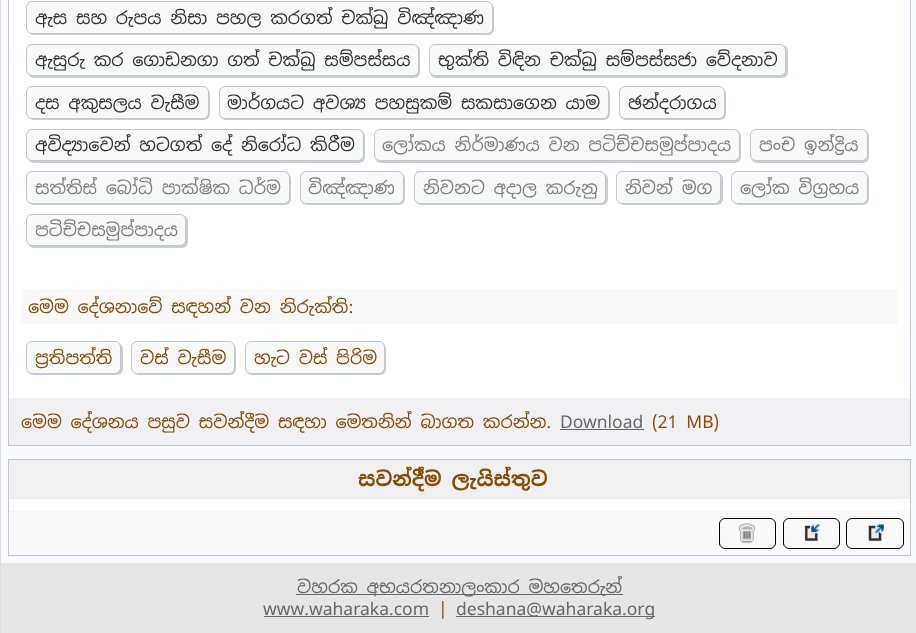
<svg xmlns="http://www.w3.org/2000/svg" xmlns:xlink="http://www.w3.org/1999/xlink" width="916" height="633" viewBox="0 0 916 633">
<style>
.cls-1{font:17.5px Noto Sans Sinhala;fill:#333333}
.cls-2{font:17.5px Noto Sans Sinhala;fill:#808080}
.cls-3{font:17.5px Noto Sans Sinhala;fill:#874d08}
.cls-4{font:17.5px Noto Sans Sinhala;fill:#696969}
.cls-5{font:bold 20px Noto Sans Sinhala;fill:#874d08}
</style>
<rect width="100%" height="100%" fill="#ffffff"/>
<rect fill="none" stroke="#dedede" x="0.5" y="-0.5" width="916" height="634"/>
<rect fill="#f9fafd" x="1" y="0" width="915" height="563"/>
<rect fill="#ffffff" x="9" y="0" width="901" height="398"/>
<rect fill="none" stroke="#bdc7d8" x="8.5" y="-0.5" width="902" height="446"/>
<rect fill="#cccccc" filter="blur(0.5px)" x="28" y="3" width="466" height="32" rx="6"/>
<rect fill="#f9f9f9" stroke="#bdc7d8" x="26.5" y="1.5" width="466" height="32" rx="5.5"/>
<rect fill="#cccccc" filter="blur(0.5px)" x="28" y="45" width="392" height="33" rx="6"/>
<rect fill="#f9f9f9" stroke="#bdc7d8" x="26.5" y="44.5" width="392" height="31" rx="5.5"/>
<rect fill="#cccccc" filter="blur(0.5px)" x="430" y="45" width="358" height="33" rx="6"/>
<rect fill="#f9f9f9" stroke="#bdc7d8" x="429.5" y="44.5" width="356" height="31" rx="5.5"/>
<rect fill="#cccccc" filter="blur(0.5px)" x="28" y="88" width="182" height="32" rx="6"/>
<rect fill="#f9f9f9" stroke="#bdc7d8" x="26.5" y="86.5" width="182" height="32" rx="5.5"/>
<rect fill="#cccccc" filter="blur(0.5px)" x="220" y="88" width="390" height="32" rx="6"/>
<rect fill="#f9f9f9" stroke="#bdc7d8" x="219.5" y="86.5" width="389" height="32" rx="5.5"/>
<rect fill="#cccccc" filter="blur(0.5px)" x="620" y="88" width="106" height="32" rx="6"/>
<rect fill="#f9f9f9" stroke="#bdc7d8" x="619.5" y="86.5" width="105" height="32" rx="5.5"/>
<rect fill="#cccccc" filter="blur(0.5px)" x="28" y="130" width="337" height="33" rx="6"/>
<rect fill="#f9f9f9" stroke="#bdc7d8" x="26.5" y="129.5" width="337" height="31" rx="5.5"/>
<rect fill="#cccccc" filter="blur(0.5px)" x="375" y="130" width="366" height="33" rx="6"/>
<rect fill="#f9f9f9" stroke="#bdc7d8" x="374.5" y="129.5" width="365" height="31" rx="5.5"/>
<rect fill="#cccccc" filter="blur(0.5px)" x="751" y="130" width="118" height="33" rx="6"/>
<rect fill="#f9f9f9" stroke="#bdc7d8" x="750.5" y="129.5" width="117" height="31" rx="5.5"/>
<rect fill="#cccccc" filter="blur(0.5px)" x="28" y="173" width="263" height="32" rx="6"/>
<rect fill="#f9f9f9" stroke="#bdc7d8" x="26.5" y="171.5" width="263" height="32" rx="5.5"/>
<rect fill="#cccccc" filter="blur(0.5px)" x="301" y="173" width="104" height="32" rx="6"/>
<rect fill="#f9f9f9" stroke="#bdc7d8" x="300.5" y="171.5" width="103" height="32" rx="5.5"/>
<rect fill="#cccccc" filter="blur(0.5px)" x="415" y="173" width="193" height="32" rx="6"/>
<rect fill="#f9f9f9" stroke="#bdc7d8" x="414.5" y="171.5" width="191" height="32" rx="5.5"/>
<rect fill="#cccccc" filter="blur(0.5px)" x="618" y="173" width="105" height="32" rx="6"/>
<rect fill="#f9f9f9" stroke="#bdc7d8" x="616.5" y="171.5" width="104" height="32" rx="5.5"/>
<rect fill="#cccccc" filter="blur(0.5px)" x="733" y="173" width="136" height="32" rx="6"/>
<rect fill="#f9f9f9" stroke="#bdc7d8" x="731.5" y="171.5" width="136" height="32" rx="5.5"/>
<rect fill="#cccccc" filter="blur(0.5px)" x="28" y="215" width="160" height="33" rx="6"/>
<rect fill="#f9f9f9" stroke="#bdc7d8" x="26.5" y="214.5" width="159" height="31" rx="5.5"/>
<rect fill="#f9f9f9" x="21" y="289" width="877" height="35"/>
<rect fill="#cccccc" filter="blur(0.5px)" x="28" y="343" width="95" height="32" rx="6"/>
<rect fill="#f9f9f9" stroke="#bdc7d8" x="26.5" y="341.5" width="94" height="32" rx="5.5"/>
<rect fill="#cccccc" filter="blur(0.5px)" x="133" y="343" width="103" height="32" rx="6"/>
<rect fill="#f9f9f9" stroke="#bdc7d8" x="131.5" y="341.5" width="103" height="32" rx="5.5"/>
<rect fill="#cccccc" filter="blur(0.5px)" x="246" y="343" width="140" height="32" rx="6"/>
<rect fill="#f9f9f9" stroke="#bdc7d8" x="245.5" y="341.5" width="139" height="32" rx="5.5"/>
<rect fill="#f1f1f3" x="9" y="398" width="901" height="47"/>
<rect fill="#696969" x="560" y="429" width="84" height="1"/>
<rect fill="#ffffff" x="9" y="499" width="901" height="12"/>
<rect fill="none" stroke="#bdc7d8" x="8.5" y="459.5" width="902" height="96"/>
<rect fill="#f0f0f0" x="9" y="460" width="901" height="39"/>
<rect fill="#f9f9f9" x="9" y="511" width="901" height="44"/>
<image xlink:href="image0.png" x="738" y="523" width="18" height="21"/>
<rect fill="none" stroke="#000000" x="719.5" y="518.5" width="56" height="30" rx="5.5"/>
<image xlink:href="image1.png" x="804" y="523" width="17" height="19"/>
<rect fill="none" stroke="#000000" x="783.5" y="518.5" width="56" height="30" rx="5.5"/>
<image xlink:href="image2.png" x="868" y="523" width="17" height="19"/>
<rect fill="none" stroke="#000000" x="846.5" y="518.5" width="57" height="30" rx="5.5"/>
<rect fill="#e6e6e6" x="1" y="563" width="915" height="70"/>
<rect fill="#696969" x="296" y="594" width="327" height="1"/>
<rect fill="#696969" x="264" y="616" width="165" height="1"/>
<rect fill="#696969" x="456" y="616" width="199" height="1"/>
<text class="cls-1" x="35" y="24">ඇස සහ රුපය නිසා පහල කරගත් චක්ඛු විඤ්ඤාණ</text>
<text class="cls-1" x="35" y="66">ඇසුරු කර ගොඩනගා ගත් චක්ඛු සම්පස්සය</text>
<text class="cls-1" x="438" y="66">භුක්ති විඳින චක්ඛු සම්පස්සජා වේදනාව</text>
<text class="cls-1" x="35" y="109">දස අකුසලය වැසීම</text>
<text class="cls-1" x="227" y="109">මාර්ගයට අවශ්‍ය පහසුකම් සකසාගෙන යාම</text>
<text class="cls-1" x="628" y="109">ඡන්දරාගය</text>
<text class="cls-1" x="35" y="151">අවිද්‍යාවෙන් හටගත් දේ නිරෝධ කිරීම</text>
<text class="cls-2" x="382" y="151">ලෝකය නිර්මාණය වන පටිච්චසමුප්පාදය</text>
<text class="cls-2" x="759" y="151">පංච ඉන්ද්‍රිය</text>
<text class="cls-2" x="35" y="194">සත්තිස් බෝධි පාක්ෂික ධර්ම</text>
<text class="cls-2" x="308" y="194">විඤ්ඤාණ</text>
<text class="cls-2" x="423" y="194">නිවනට අදාල කරුනු</text>
<text class="cls-2" x="625" y="194">නිවන් මග</text>
<text class="cls-2" x="740" y="194">ලෝක විග්‍රහය</text>
<text class="cls-2" x="35" y="236">පටිච්චසමුප්පාදය</text>
<text class="cls-3" x="28" y="313">මෙම දේශනාවේ සඳහන් වන නිරුක්ති:</text>
<text class="cls-3" x="35" y="364">ප්‍රතිපත්ති</text>
<text class="cls-3" x="140" y="364">වස් වැසීම</text>
<text class="cls-3" x="254" y="364">හැට වස් පිරිම</text>
<text class="cls-3" x="21" y="428">මෙම දේශනය පසුව සවන්දීම සඳහා මෙතනින් බාගත කරන්න.</text>
<text class="cls-4" x="560" y="428">Download</text>
<text class="cls-3" x="652" y="428">(21 MB)</text>
<text class="cls-5" x="358" y="486">සවන්දීමේ ලැයිස්තුව</text>
<text class="cls-4" x="297" y="593">වහරක අභයරතනාලංකාර මහතෙරුන්</text>
<text class="cls-4" x="263" y="615">www.waharaka.com</text>
<text class="cls-3" x="438" y="615">|</text>
<text class="cls-4" x="456" y="615">deshana@waharaka.org</text>
</svg>
